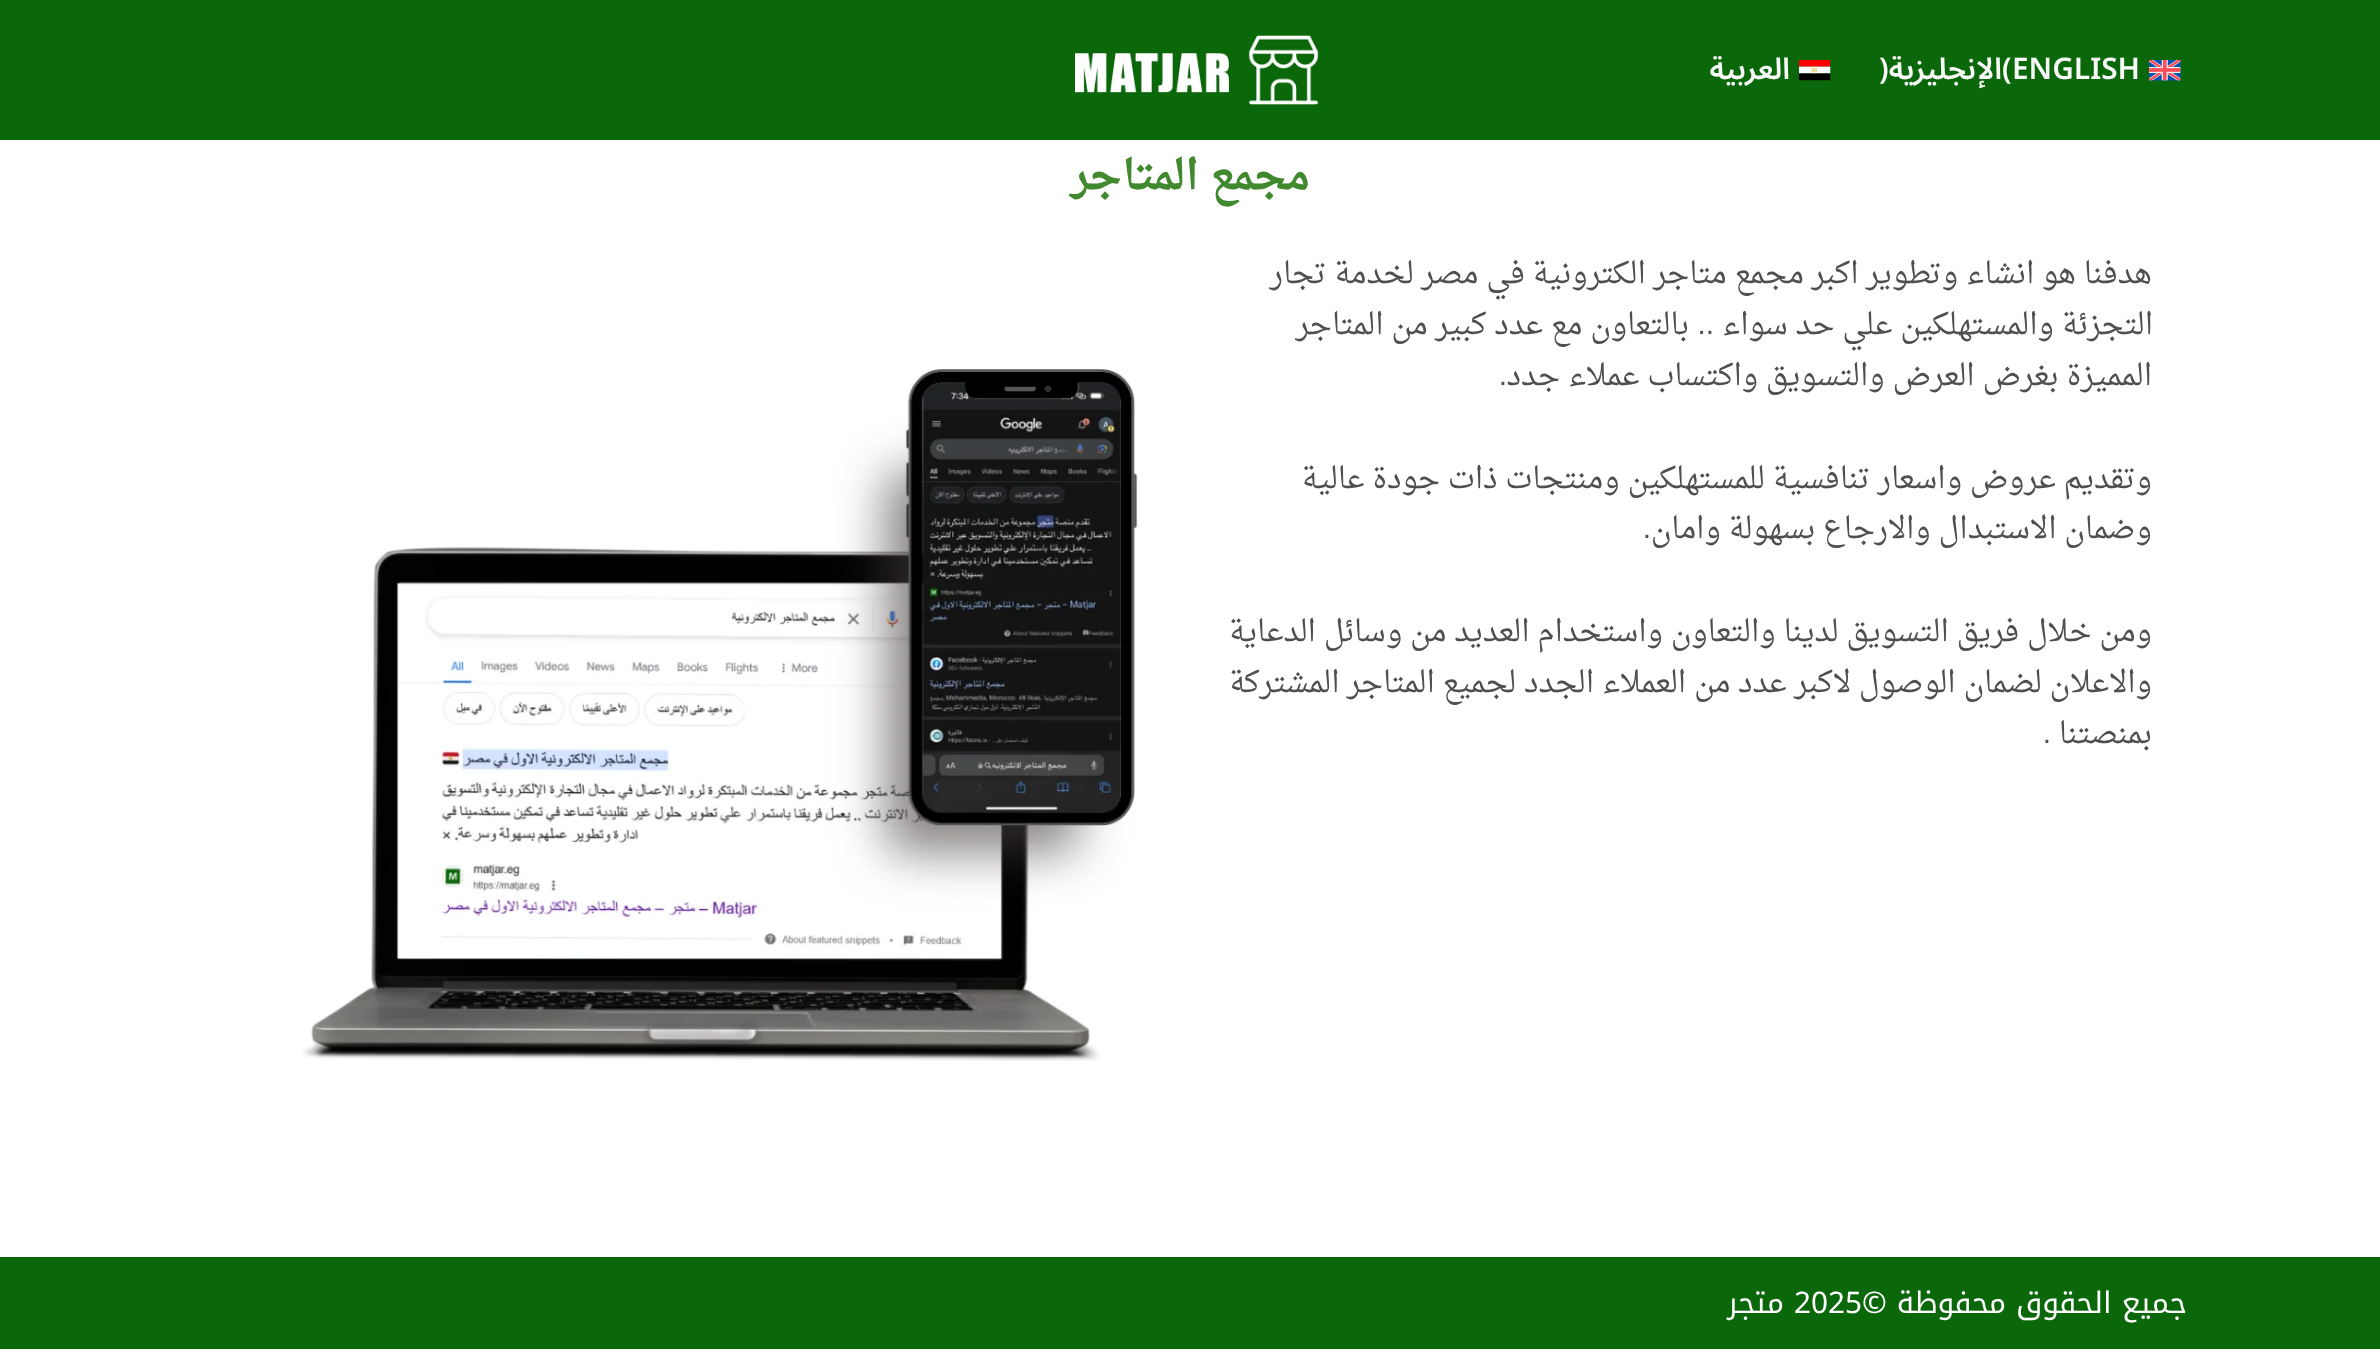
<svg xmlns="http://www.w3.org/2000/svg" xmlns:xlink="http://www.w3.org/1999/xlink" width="2380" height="1349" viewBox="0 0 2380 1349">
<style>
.cls-1{font:600 29.75px Noto Sans Arabic;fill:#faf9f9}
.cls-2{font:600 29.75px Noto Sans Arabic;direction:rtl;fill:#faf9f9}
.cls-3{font:bold 42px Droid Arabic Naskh;direction:rtl;fill:#41892e}
.cls-4{font:29.75px Droid Arabic Naskh;direction:rtl;fill:#4f4f4f}
.cls-5{font:29.75px Liberation Sans;direction:rtl;fill:#4f4f4f}
.cls-6{font:29.75px Noto Kufi Arabic;direction:rtl;fill:#ffffff}
.cls-7{font:29.75px Noto Kufi Arabic;fill:#ffffff}
</style>
<rect width="100%" height="100%" fill="#ffffff"/>
<rect fill="#0b680a" x="0" y="0" width="2380" height="140"/>
<image xlink:href="image0.png" x="2149" y="60" width="32" height="21"/>
<image xlink:href="image1.png" x="1799" y="60" width="32" height="21"/>
<image xlink:href="image2.png" x="1074" y="35" width="245" height="72"/>
<image xlink:href="image3.png" x="303" y="369" width="835" height="692"/>
<rect fill="#0b680a" x="0" y="1257" width="2380" height="92"/>
<text class="cls-1" x="2012" y="79">ENGLISH</text>
<text class="cls-1" x="2002" y="79">(</text>
<text class="cls-2" x="2002" y="79">الإنجليزية</text>
<text class="cls-1" x="1879" y="79">)</text>
<text class="cls-2" x="1790" y="79">العربية</text>
<text class="cls-3" x="1310" y="189">مجمع المتاجر</text>
<text class="cls-4" x="2152" y="283">هدفنا هو انشاء وتطوير اكبر مجمع متاجر الكترونية في مصر لخدمة تجار</text>
<text class="cls-4" x="2153" y="334">التجزئة والمستهلكين علي حد سواء</text>
<text class="cls-5" x="1714" y="334">..</text>
<text class="cls-4" x="1689" y="334">بالتعاون مع عدد كبير من المتاجر</text>
<text class="cls-4" x="2152" y="385">المميزة بغرض العرض والتسويق واكتساب عملاء جدد</text>
<text class="cls-5" x="1507" y="385">.</text>
<text class="cls-4"><tspan x="2152" y="488">وتقديم عروض واسعار تنافسية للمستهلكين ومنتجات ذات جودة عالية</tspan><tspan x="2152" y="538">وضمان الاستبدال والارجاع بسهولة وامان</tspan></text>
<text class="cls-5" x="1651" y="538">.</text>
<text class="cls-4"><tspan x="2152" y="641">ومن خلال فريق التسويق لدينا والتعاون واستخدام العديد من وسائل الدعاية</tspan><tspan x="2152" y="692">والاعلان لضمان الوصول لاكبر عدد من العملاء الجدد لجميع المتاجر المشتركة</tspan><tspan x="2152" y="743">بمنصتنا</tspan></text>
<text class="cls-5" x="2051" y="743">.</text>
<text class="cls-6" x="2187" y="1313">جميع الحقوق محفوظة ©</text>
<text class="cls-7" x="1794" y="1313">2025</text>
<text class="cls-6" x="1784" y="1313">متجر</text>
</svg>
